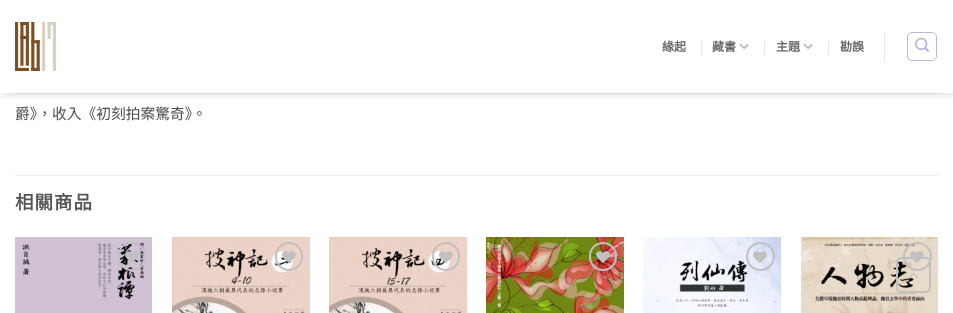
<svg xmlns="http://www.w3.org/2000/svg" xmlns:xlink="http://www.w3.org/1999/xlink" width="953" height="313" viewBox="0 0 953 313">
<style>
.cls-1{font:bold 12px Noto Sans CJK TC;fill:#646464}
.cls-2{font:14.75px Noto Sans CJK TC;fill:#4f4f4f}
.cls-3{font:bold 18.5px Noto Sans CJK TC;letter-spacing:1px;fill:#555555}
</style>
<defs>
<clipPath id="clip1"><rect x="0" y="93" width="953" height="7"/></clipPath>
</defs>
<rect width="100%" height="100%" fill="#ffffff"/>
<g clip-path="url(#clip1)">
<rect fill="#000000" fill-opacity="0.15" filter="blur(5px)" x="1" y="1" width="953" height="93"/>
</g>
<image xlink:href="image0.png" x="15" y="22" width="41" height="49"/>
<rect fill="#000000" fill-opacity="0.1" x="701" y="40" width="1" height="15"/>
<image xlink:href="image1.png" x="739" y="43" width="10" height="6"/>
<rect fill="#000000" fill-opacity="0.1" x="764" y="40" width="1" height="15"/>
<image xlink:href="image2.png" x="803" y="43" width="10" height="6"/>
<rect fill="#e6e6e6" x="828" y="40" width="1" height="15"/>
<rect fill="#000000" fill-opacity="0.1" x="884" y="32" width="1" height="30"/>
<rect fill="none" stroke="#b6b8dd" x="907.5" y="32.5" width="29" height="28" rx="4.5"/>
<image xlink:href="image3.png" x="915" y="37" width="15" height="15"/>
<rect fill="#4f4f4f" fill-opacity="0.1" x="15" y="93" width="923" height="1"/>
<rect fill="#ececec" x="15" y="175" width="923" height="1"/>
<image xlink:href="image4.png" x="15" y="237" width="137" height="76"/>
<circle fill="none" stroke="#c0c0c0" stroke-width="2" cx="131.5" cy="256.5" r="13.5"/>
<image xlink:href="image5.png" x="125" y="251" width="14" height="12"/>
<image xlink:href="image6.png" x="172" y="237" width="138" height="76"/>
<rect fill="none" stroke="#c0c0c0" stroke-width="2" x="276" y="243" width="26" height="27" rx="13"/>
<image xlink:href="image7.png" x="282" y="251" width="14" height="12"/>
<image xlink:href="image8.png" x="329" y="237" width="138" height="76"/>
<rect fill="none" stroke="#c0c0c0" stroke-width="2" x="433" y="243" width="26" height="27" rx="13"/>
<image xlink:href="image9.png" x="439" y="251" width="14" height="12"/>
<image xlink:href="image10.png" x="486" y="237" width="138" height="76"/>
<rect fill="none" stroke="#c0c0c0" stroke-width="2" x="590" y="243" width="26" height="27" rx="13"/>
<image xlink:href="image11.png" x="596" y="251" width="14" height="12"/>
<image xlink:href="image12.png" x="643" y="237" width="138" height="76"/>
<circle fill="none" stroke="#c0c0c0" stroke-width="2" cx="760.5" cy="256.5" r="13.5"/>
<image xlink:href="image13.png" x="753" y="251" width="14" height="12"/>
<image xlink:href="image14.png" x="801" y="237" width="137" height="76"/>
<circle fill="none" stroke="#c0c0c0" stroke-width="2" cx="917.5" cy="256.5" r="13.5"/>
<image xlink:href="image15.png" x="910" y="251" width="14" height="12"/>
<rect fill="none" stroke="#c0c0c0" stroke-width="2" x="897" y="258" width="33" height="34" rx="4"/>
<image xlink:href="image16.png" x="908" y="272" width="11" height="6"/>
<text class="cls-1" x="662" y="51">緣起</text>
<text class="cls-1" x="712" y="51">藏書</text>
<text class="cls-1" x="776" y="51">主題</text>
<text class="cls-1" x="840" y="51">勘誤</text>
<text class="cls-2" x="15" y="119">爵》，收入《初刻拍案驚奇》。</text>
<text class="cls-3" x="15" y="209">相關商品</text>
</svg>
